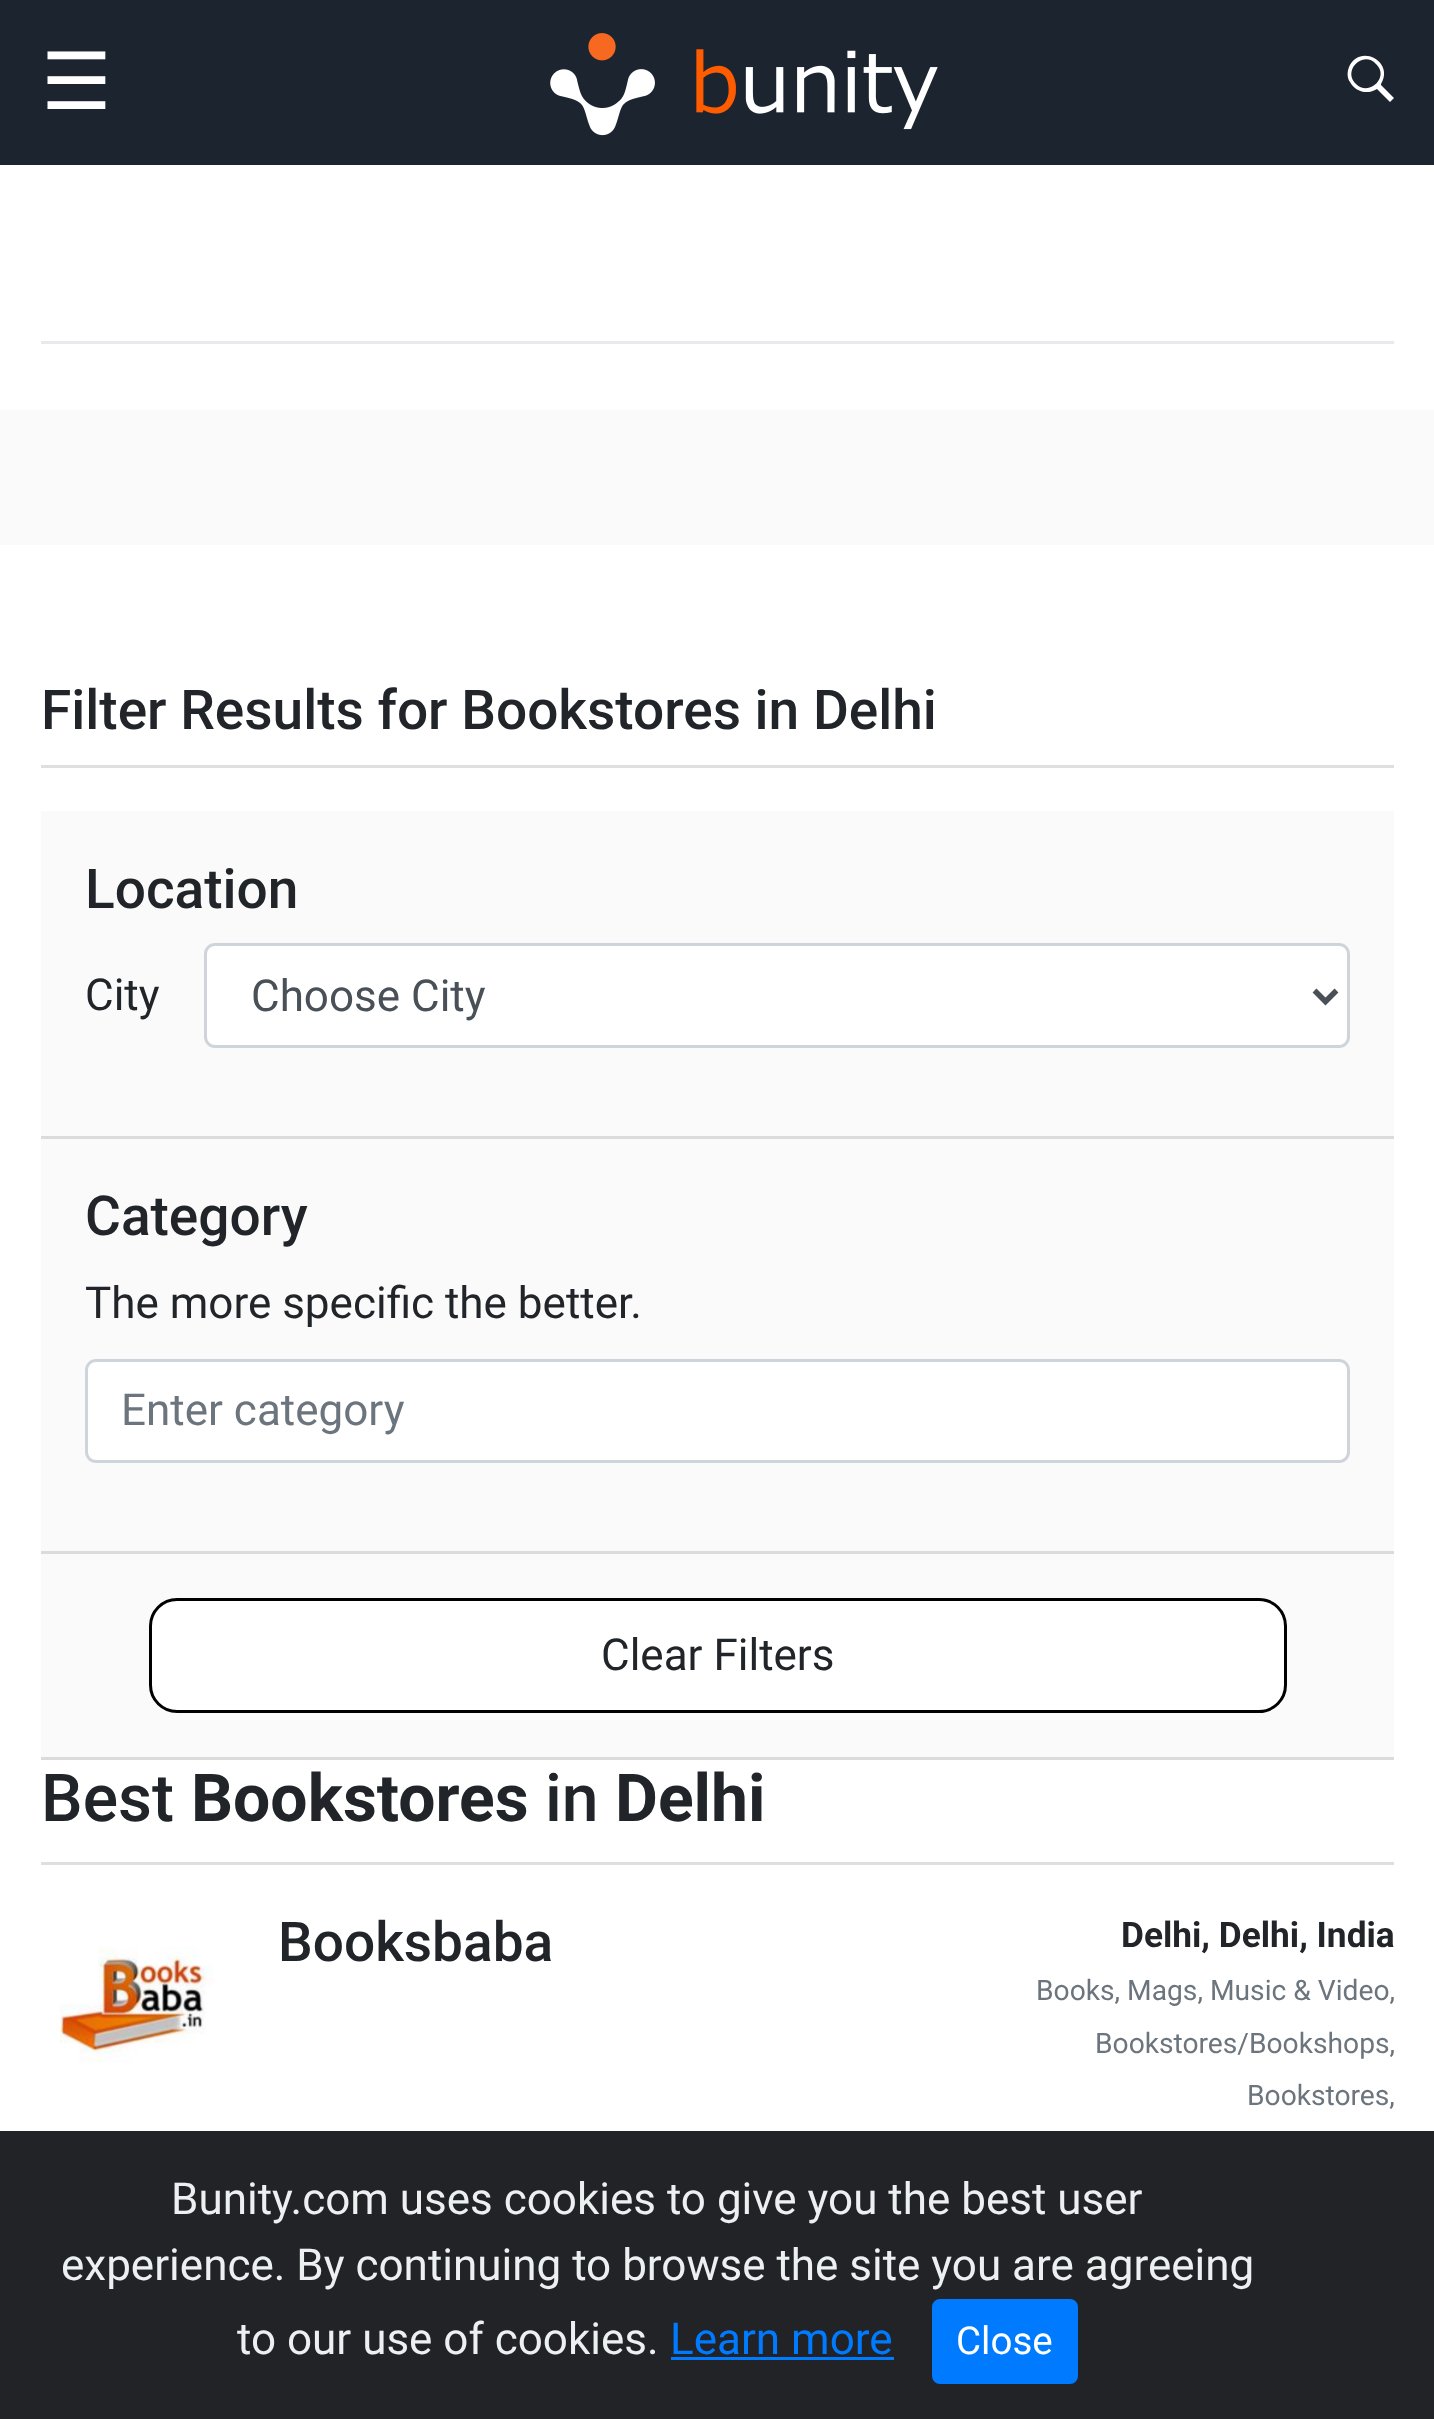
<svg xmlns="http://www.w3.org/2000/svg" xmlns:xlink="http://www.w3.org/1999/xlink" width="1434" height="2419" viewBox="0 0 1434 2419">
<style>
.cls-1{font:79px DejaVu Sans;fill:#ffffff}
.cls-2{font:500 55px Roboto;fill:#212529}
.cls-3{font:44px Roboto;fill:#212529}
.cls-4{font:44px Roboto;fill:#495057}
.cls-5{font:44px Roboto;fill:#6c757d}
.cls-6{font:500 66px Roboto;fill:#212529}
.cls-7{font:bold 66px Roboto;fill:#212529}
.cls-8{font:bold 35.25px Roboto;fill:#212529}
.cls-9{font:28.2px Roboto;fill:#6c757d}
.cls-10{font:44px Roboto;fill:#ecf0f1}
.cls-11{font:44px Roboto;fill:#007bff}
.cls-12{font:38.5px Roboto;fill:#ffffff}
</style>
<rect width="100%" height="100%" fill="#ffffff"/>
<rect fill="#1b242f" x="0" y="0" width="1434" height="165"/>
<image xlink:href="image0.png" x="550" y="33" width="388" height="103"/>
<path fill="#ffffff" d="M1381 84V85L1394 98L1390 102L1377 89C1368 95 1355 92 1350 82C1347 78 1347 72 1349 67C1359 43 1395 61 1381 84ZM1376 64C1363 50 1342 71 1356 84C1369 97 1390 77 1376 64Z"/>
<rect fill="#e8e9ed" x="41" y="341" width="1353" height="3"/>
<rect fill="#fafafa" x="0" y="410" width="1434" height="135"/>
<rect fill="#dfdfdf" x="41" y="765" width="1353" height="3"/>
<rect fill="#fafafa" x="41" y="811" width="1353" height="946"/>
<rect fill="#dbdbdb" x="41" y="1136" width="1353" height="3"/>
<rect fill="#ffffff" stroke="#ced4da" stroke-width="3" x="205.5" y="944.5" width="1143" height="102" rx="9.5"/>
<path fill="none" stroke="#495057" stroke-width="5.5" d="M1314.5 990.5L1325.5 1001.5L1336.5 990.5"/>
<rect fill="#dbdbdb" x="41" y="1551" width="1353" height="3"/>
<rect fill="#ffffff" stroke="#ced4da" stroke-width="3" x="86.5" y="1360.5" width="1262" height="101" rx="9.5"/>
<rect fill="#dbdbdb" x="41" y="1757" width="1353" height="3"/>
<rect fill="#ffffff" stroke="#000000" stroke-width="3" x="150.5" y="1599.5" width="1135" height="112" rx="26.5"/>
<rect fill="#dfdfdf" x="41" y="1862" width="1353" height="3"/>
<image xlink:href="image1.png" x="59" y="1947" width="155" height="116"/>
<rect fill="#212327" x="0" y="2131" width="1434" height="288"/>
<rect fill="#007bff" x="671" y="2357" width="223" height="3"/>
<rect fill="#007bff" stroke="#007bff" stroke-width="3" x="933.5" y="2300.5" width="143" height="82" rx="6.5"/>
<text class="cls-1" x="41" y="109">☰</text>
<text class="cls-2" x="41" y="729">Filter Results for Bookstores in Delhi</text>
<text class="cls-2" x="85" y="908">Location</text>
<text class="cls-3" x="85" y="1010">City</text>
<text class="cls-4" x="251" y="1011">Choose City</text>
<text class="cls-2" x="85" y="1235">Category</text>
<text class="cls-3" x="85" y="1318">The more specific the better.</text>
<text class="cls-5" x="121" y="1425">Enter category</text>
<text class="cls-3" x="601" y="1670">Clear Filters</text>
<text class="cls-6" x="41" y="1821">Best</text>
<text class="cls-7" x="191" y="1821">Bookstores</text>
<text class="cls-6" x="545" y="1821">in</text>
<text class="cls-7" x="615" y="1821">Delhi</text>
<text class="cls-2" x="278" y="1961">Booksbaba</text>
<text class="cls-8" x="1121" y="1947">Delhi, Delhi, India</text>
<text class="cls-9" x="1036" y="2000">Books, Mags, Music &amp; Video,</text>
<text class="cls-9" x="1095" y="2053">Bookstores/Bookshops,</text>
<text class="cls-9" x="1247" y="2105">Bookstores,</text>
<text class="cls-10" x="171" y="2214">Bunity.com uses cookies to give you the best user</text>
<text class="cls-10" x="61" y="2280">experience. By continuing to browse the site you are agreeing</text>
<text class="cls-10" x="237" y="2354">to our use of cookies.</text>
<text class="cls-11" x="670" y="2354">Learn more</text>
<text class="cls-12" x="956" y="2354">Close</text>
</svg>
